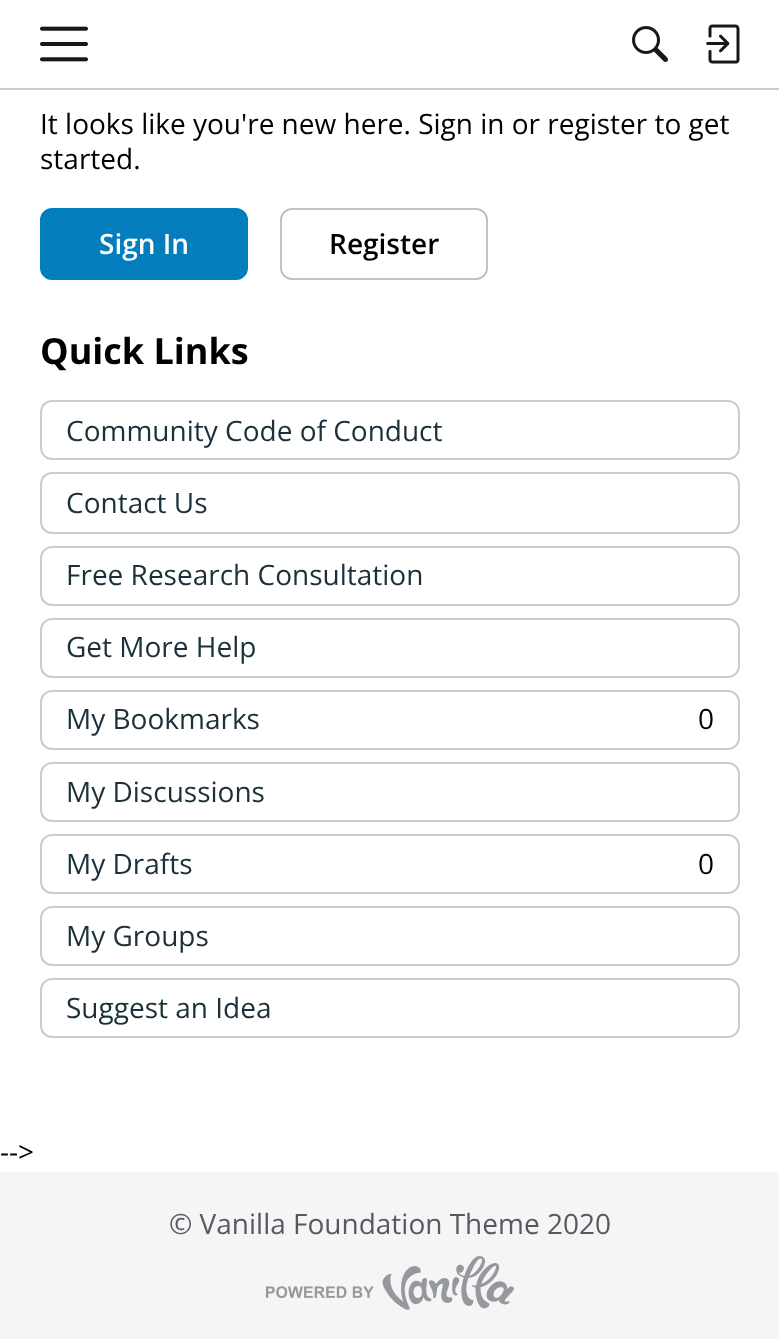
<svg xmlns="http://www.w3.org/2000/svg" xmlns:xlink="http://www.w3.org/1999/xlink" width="779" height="1339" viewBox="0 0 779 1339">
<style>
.cls-1{font:28px Open Sans;fill:#000000}
.cls-2{font:600 28px Open Sans;fill:#ffffff}
.cls-3{font:600 28px Open Sans;fill:#000000}
.cls-4{font:bold 36px Open Sans;fill:#000000}
.cls-5{font:28px Open Sans;fill:#1b3139}
.cls-6{font:28px Open Sans;fill:#555a62}
</style>
<rect width="100%" height="100%" fill="#ffffff"/>
<rect fill="#cccccc" x="0" y="88" width="779" height="2"/>
<image xlink:href="image0.png" x="40" y="26" width="48" height="36"/>
<image xlink:href="image1.png" x="632" y="26" width="36" height="36"/>
<image xlink:href="image2.png" x="706" y="24" width="34" height="40"/>
<rect fill="#037dbc" stroke="#037dbc" stroke-width="2" x="41" y="209" width="206" height="70" rx="11"/>
<rect fill="none" stroke="#c2c2c2" stroke-width="2" x="281" y="209" width="206" height="70" rx="11"/>
<rect fill="none" stroke="#cccccc" stroke-width="2" x="41" y="401" width="698" height="58" rx="11"/>
<rect fill="none" stroke="#cccccc" stroke-width="2" x="41" y="473" width="698" height="60" rx="11"/>
<rect fill="none" stroke="#cccccc" stroke-width="2" x="41" y="547" width="698" height="58" rx="11"/>
<rect fill="none" stroke="#cccccc" stroke-width="2" x="41" y="619" width="698" height="58" rx="11"/>
<rect fill="none" stroke="#cccccc" stroke-width="2" x="41" y="691" width="698" height="58" rx="11"/>
<rect fill="none" stroke="#cccccc" stroke-width="2" x="41" y="763" width="698" height="58" rx="11"/>
<rect fill="none" stroke="#cccccc" stroke-width="2" x="41" y="835" width="698" height="58" rx="11"/>
<rect fill="none" stroke="#cccccc" stroke-width="2" x="41" y="907" width="698" height="58" rx="11"/>
<rect fill="none" stroke="#cccccc" stroke-width="2" x="41" y="979" width="698" height="58" rx="11"/>
<rect fill="#f5f5f6" x="0" y="1172" width="779" height="167"/>
<image xlink:href="image3.png" x="266" y="1256" width="248" height="54"/>
<text class="cls-1"><tspan x="40" y="134">It looks like you're new here. Sign in or register to get</tspan><tspan x="40" y="169">started.</tspan></text>
<text class="cls-2" x="99" y="254">Sign In</text>
<text class="cls-3" x="329" y="254">Register</text>
<text class="cls-4" x="40" y="364">Quick Links</text>
<text class="cls-5" x="66" y="441">Community Code of Conduct</text>
<text class="cls-5" x="66" y="513">Contact Us</text>
<text class="cls-5" x="66" y="585">Free Research Consultation</text>
<text class="cls-5" x="66" y="657">Get More Help</text>
<text class="cls-5" x="66" y="729">My Bookmarks</text>
<text class="cls-1" x="698" y="729">0</text>
<text class="cls-5" x="66" y="802">My Discussions</text>
<text class="cls-5" x="66" y="874">My Drafts</text>
<text class="cls-1" x="698" y="874">0</text>
<text class="cls-5" x="66" y="946">My Groups</text>
<text class="cls-5" x="66" y="1018">Suggest an Idea</text>
<text class="cls-1" x="0" y="1162">--&gt;</text>
<text class="cls-6" x="169" y="1234">© Vanilla Foundation Theme 2020</text>
</svg>
